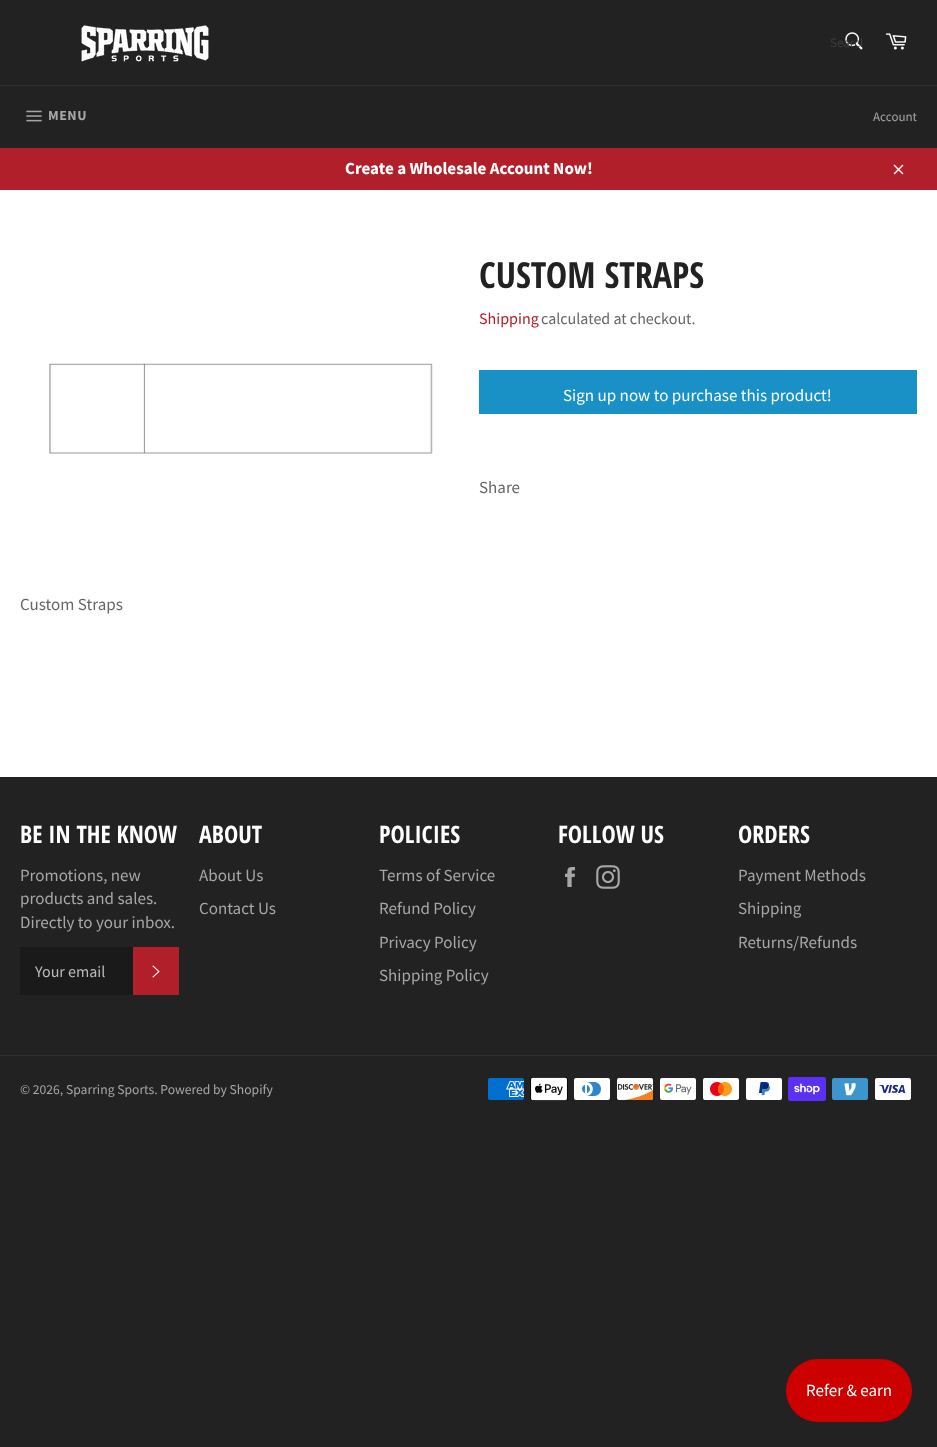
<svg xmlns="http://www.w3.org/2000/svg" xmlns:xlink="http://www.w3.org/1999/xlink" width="937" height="1447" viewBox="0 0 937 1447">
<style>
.cls-1{font:13px Source Sans Pro;fill:#3e3e3e}
.cls-2{font:bold 14px Source Sans Pro;letter-spacing:0.5px;fill:#a7a7a7}
.cls-3{font:13px Source Sans Pro;fill:#a7a7a7}
.cls-4{font:bold 17px Source Sans Pro;fill:#ffffff}
.cls-5{font:bold 36px Open Sans Condensed;fill:#222222}
.cls-6{font:16px Source Sans Pro;fill:#b1202a}
.cls-7{font:16px Source Sans Pro;fill:#666666}
.cls-8{font:17px Source Sans Pro;fill:#ffffff}
.cls-9{font:17px Source Sans Pro;fill:#666666}
.cls-10{font:bold 24px Open Sans Condensed;fill:#ffffff}
.cls-11{font:17px Source Sans Pro;fill:#a7a7a7}
.cls-12{font:16px Source Sans Pro;fill:#bababa}
.cls-13{font:13.6px Source Sans Pro;fill:#a7a7a7}
</style>
<defs>
<clipPath id="clip1"><rect x="830" y="34" width="32" height="17"/></clipPath>
</defs>
<rect width="100%" height="100%" fill="#222222"/>
<rect fill="#ffffff" x="0" y="190" width="937" height="587"/>
<image xlink:href="image0.png" x="81" y="25" width="128" height="37"/>
<image xlink:href="image1.png" x="845" y="32" width="18" height="18"/>
<image xlink:href="image2.png" x="885" y="33" width="22" height="17"/>
<rect fill="#2f2f2f" x="0" y="85" width="937" height="1"/>
<image xlink:href="image3.png" x="26" y="110" width="16" height="12"/>
<rect fill="#b1202a" x="0" y="148" width="937" height="42"/>
<image xlink:href="image4.png" x="893" y="164" width="11" height="11"/>
<rect fill="#1990c6" x="479" y="370" width="438" height="44"/>
<image xlink:href="image5.png" x="49" y="363" width="384" height="91"/>
<rect fill="#1a1a1a" x="20" y="947" width="113" height="48"/>
<rect fill="#b1202a" x="133" y="947" width="46" height="48"/>
<image xlink:href="image6.png" x="152" y="965" width="8" height="13"/>
<image xlink:href="image7.png" x="565" y="867" width="10" height="20"/>
<image xlink:href="image8.png" x="596" y="865" width="24" height="24"/>
<rect fill="#2f2f2f" x="0" y="1055" width="937" height="1"/>
<image xlink:href="image9.png" x="488" y="1078" width="36" height="22"/>
<image xlink:href="image10.png" x="530" y="1077" width="38" height="24"/>
<image xlink:href="image11.png" x="574" y="1078" width="36" height="22"/>
<image xlink:href="image12.png" x="617" y="1078" width="36" height="22"/>
<image xlink:href="image13.png" x="660" y="1078" width="36" height="22"/>
<image xlink:href="image14.png" x="703" y="1078" width="36" height="22"/>
<image xlink:href="image15.png" x="746" y="1078" width="36" height="22"/>
<image xlink:href="image16.png" x="788" y="1077" width="38" height="24"/>
<image xlink:href="image17.png" x="832" y="1078" width="36" height="22"/>
<image xlink:href="image18.png" x="875" y="1078" width="36" height="22"/>
<rect fill="#cd0000" x="786" y="1359" width="126" height="63" rx="31.5"/>
<g clip-path="url(#clip1)">
<text class="cls-1" x="830" y="47">Search</text>
</g>
<text class="cls-2" x="48" y="120">MENU</text>
<text class="cls-3" x="873" y="121">Account</text>
<text class="cls-4" x="345" y="174">Create a Wholesale Account Now!</text>
<text class="cls-5" x="479" y="288">CUSTOM STRAPS</text>
<text class="cls-6" x="479" y="324">Shipping</text>
<text class="cls-7" x="541" y="324">calculated at checkout.</text>
<text class="cls-8" x="563" y="401">Sign up now to purchase this product!</text>
<text class="cls-9" x="479" y="493">Share</text>
<text class="cls-9" x="20" y="610">Custom Straps</text>
<text class="cls-10" x="20" y="843">BE IN THE KNOW</text>
<text class="cls-11"><tspan x="20" y="881">Promotions, new</tspan><tspan x="20" y="904">products and sales.</tspan><tspan x="20" y="928">Directly to your inbox.</tspan></text>
<text class="cls-12" x="35" y="977">Your email</text>
<text class="cls-10" x="199" y="843">ABOUT</text>
<text class="cls-11"><tspan x="199" y="881">About Us</tspan><tspan x="199" y="914">Contact Us</tspan></text>
<text class="cls-10" x="379" y="843">POLICIES</text>
<text class="cls-11"><tspan x="379" y="881">Terms of Service</tspan><tspan x="379" y="914">Refund Policy</tspan></text>
<text class="cls-11"><tspan x="379" y="948">Privacy Policy</tspan><tspan x="379" y="981">Shipping Policy</tspan></text>
<text class="cls-10" x="558" y="843">FOLLOW US</text>
<text class="cls-10" x="738" y="843">ORDERS</text>
<text class="cls-11"><tspan x="738" y="881">Payment Methods</tspan><tspan x="738" y="914">Shipping</tspan></text>
<text class="cls-11" x="738" y="948">Returns/Refunds</text>
<text class="cls-13" x="20" y="1094">© 2026, Sparring Sports. Powered by Shopify</text>
<text class="cls-8" x="806" y="1396">Refer &amp; earn</text>
</svg>
